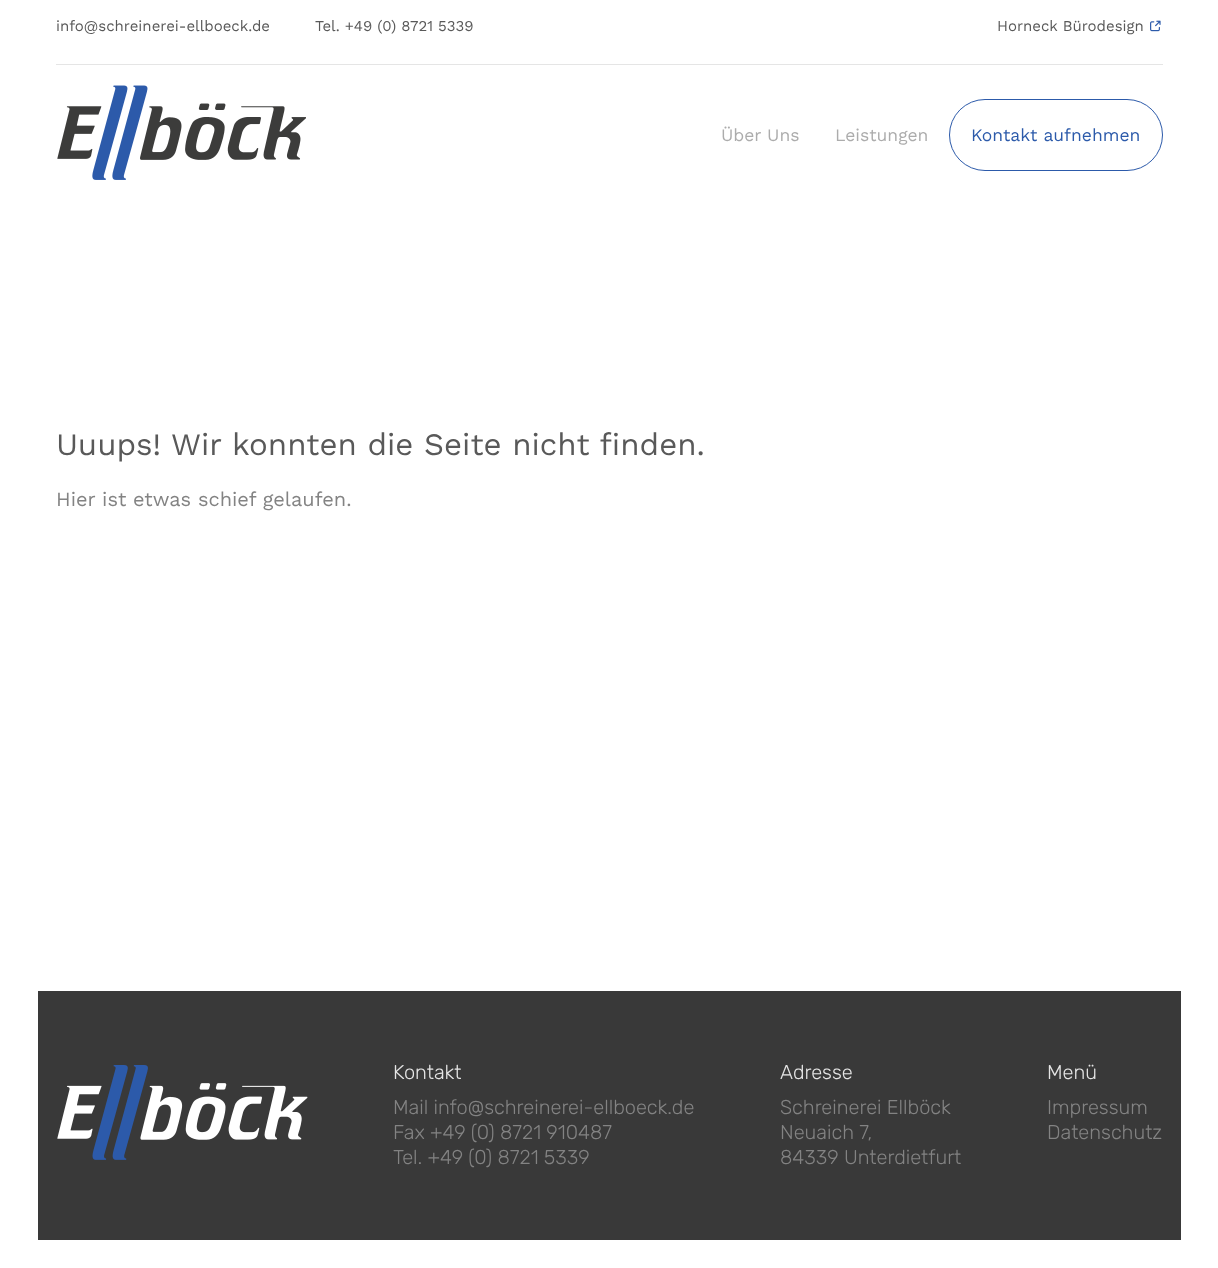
<svg xmlns="http://www.w3.org/2000/svg" xmlns:xlink="http://www.w3.org/1999/xlink" width="1218" height="1268" viewBox="0 0 1218 1268">
<style>
.cls-1{font:15px Work Sans;fill:#595959}
.cls-2{font:17.5px Work Sans;fill:#acacac}
.cls-3{font:17.5px Work Sans;fill:#2c5aaa}
.cls-4{font:31.25px Work Sans;fill:#595959}
.cls-5{font:20px Work Sans;fill:#838383}
.cls-6{font:300 20px Rubik;fill:#e5e5e5}
.cls-7{font:300 20px Rubik;fill:#838383}
</style>
<rect width="100%" height="100%" fill="#ffffff"/>
<rect fill="#e5e5e5" x="56" y="64" width="1107" height="1"/>
<image xlink:href="image0.png" x="1150" y="20" width="11" height="12"/>
<image xlink:href="image1.png" x="57" y="85" width="249" height="95"/>
<rect fill="none" stroke="#2c5aaa" x="949.5" y="99.5" width="213" height="71" rx="35.5"/>
<rect fill="#393939" x="38" y="991" width="1143" height="249"/>
<image xlink:href="image2.png" x="57" y="1065" width="251" height="95"/>
<text class="cls-1" x="56" y="31">info@schreinerei-ellboeck.de</text>
<text class="cls-1" x="315" y="31">Tel. +49 (0) 8721 5339</text>
<text class="cls-1" x="997" y="31">Horneck Bürodesign</text>
<text class="cls-2" x="721" y="141">Über Uns</text>
<text class="cls-2" x="835" y="141">Leistungen</text>
<text class="cls-3" x="971" y="141">Kontakt aufnehmen</text>
<text class="cls-4" x="56" y="455">Uuups! Wir konnten die Seite nicht finden.</text>
<text class="cls-5" x="56" y="506">Hier ist etwas schief gelaufen.</text>
<text class="cls-6" x="393" y="1079">Kontakt</text>
<text class="cls-7"><tspan x="393" y="1114">Mail info@schreinerei-ellboeck.de</tspan><tspan x="393" y="1139">Fax +49 (0) 8721 910487</tspan><tspan x="393" y="1164">Tel. +49 (0) 8721 5339</tspan></text>
<text class="cls-6" x="780" y="1079">Adresse</text>
<text class="cls-7"><tspan x="780" y="1114">Schreinerei Ellböck</tspan><tspan x="780" y="1139">Neuaich 7,</tspan><tspan x="780" y="1164">84339 Unterdietfurt</tspan></text>
<text class="cls-6" x="1047" y="1079">Menü</text>
<text class="cls-7"><tspan x="1047" y="1114">Impressum</tspan><tspan x="1047" y="1139">Datenschutz</tspan></text>
</svg>
